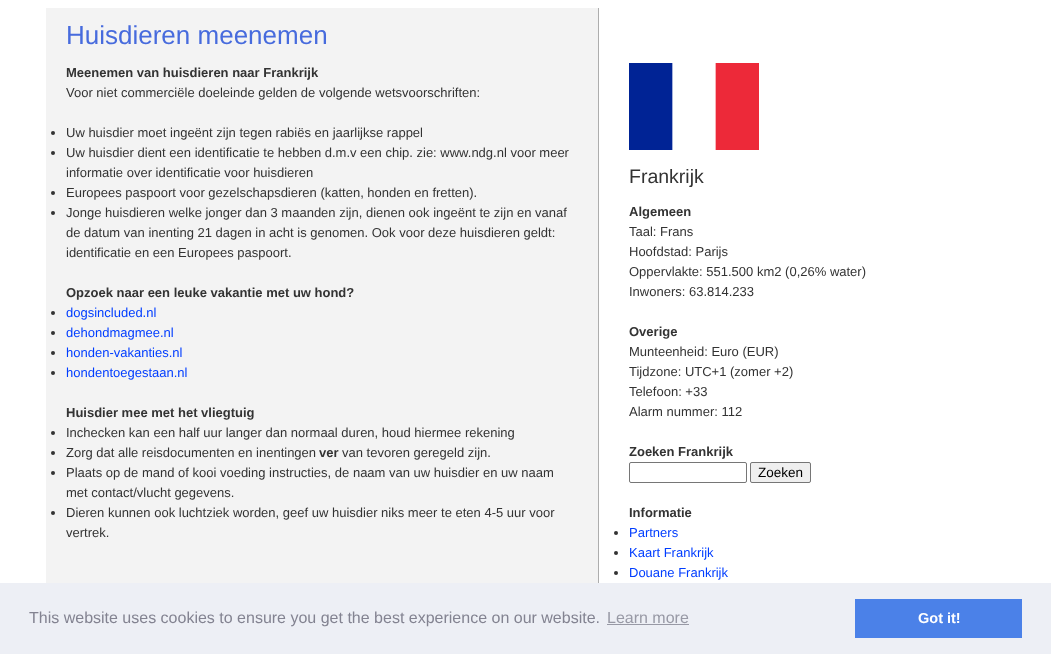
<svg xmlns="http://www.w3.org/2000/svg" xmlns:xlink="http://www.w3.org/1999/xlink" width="1051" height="654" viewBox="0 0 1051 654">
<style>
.cls-1{font:26px Liberation Sans;fill:#476bdd}
.cls-2{font:bold 13px Liberation Sans;fill:#333333}
.cls-3{font:13px Liberation Sans;fill:#333333}
.cls-4{font:13px Liberation Sans;fill:#003dff}
.cls-5{font:19.5px Liberation Sans;fill:#333333}
.cls-6{font:13.5px Liberation Sans;fill:#000000}
.cls-7{font:16px Liberation Sans;fill:#838391}
.cls-8{font:16px Liberation Sans;fill:#9899a5}
.cls-9{font:bold 14.5px Liberation Sans;fill:#ffffff}
</style>
<rect width="100%" height="100%" fill="#ffffff"/>
<rect fill="#f3f3f3" x="46" y="8" width="552" height="575"/>
<rect fill="#adadad" x="598" y="8" width="1" height="575"/>
<circle fill="#333333" cx="53" cy="133" r="2"/>
<circle fill="#333333" cx="53" cy="153" r="2"/>
<circle fill="#333333" cx="53" cy="193" r="2"/>
<circle fill="#333333" cx="53" cy="213" r="2"/>
<circle fill="#333333" cx="53" cy="313" r="2"/>
<circle fill="#333333" cx="53" cy="333" r="2"/>
<circle fill="#333333" cx="53" cy="353" r="2"/>
<circle fill="#333333" cx="53" cy="373" r="2"/>
<circle fill="#333333" cx="53" cy="433" r="2"/>
<circle fill="#333333" cx="53" cy="453" r="2"/>
<circle fill="#333333" cx="53" cy="473" r="2"/>
<circle fill="#333333" cx="53" cy="513" r="2"/>
<image xlink:href="image0.png" x="629" y="63" width="130" height="87"/>
<rect fill="none" stroke="#767676" x="629.5" y="462.5" width="117" height="20" rx="1.5"/>
<rect fill="#efefef" stroke="#767676" x="750.5" y="462.5" width="60" height="20" rx="1.5"/>
<circle fill="#333333" cx="616" cy="533" r="2"/>
<circle fill="#333333" cx="616" cy="553" r="2"/>
<circle fill="#333333" cx="616" cy="573" r="2"/>
<rect fill="#edeff5" x="0" y="583" width="1051" height="71"/>
<rect fill="#9899a5" x="607" y="624" width="82" height="1"/>
<rect fill="#4b81e8" x="855" y="599" width="167" height="39"/>
<text class="cls-1" x="66" y="44">Huisdieren meenemen</text>
<text class="cls-2" x="66" y="77">Meenemen van huisdieren naar Frankrijk</text>
<text class="cls-3" x="66" y="97">Voor niet commerciële doeleinde gelden de volgende wetsvoorschriften:</text>
<text class="cls-3"><tspan x="66" y="137">Uw huisdier moet ingeënt zijn tegen rabiës en jaarlijkse rappel</tspan><tspan x="66" y="157">Uw huisdier dient een identificatie te hebben d.m.v een chip. zie: www.ndg.nl voor meer</tspan><tspan x="66" y="177">informatie over identificatie voor huisdieren</tspan><tspan x="66" y="197">Europees paspoort voor gezelschapsdieren (katten, honden en fretten).</tspan><tspan x="66" y="217">Jonge huisdieren welke jonger dan 3 maanden zijn, dienen ook ingeënt te zijn en vanaf</tspan><tspan x="66" y="237">de datum van inenting 21 dagen in acht is genomen. Ook voor deze huisdieren geldt:</tspan><tspan x="66" y="257">identificatie en een Europees paspoort.</tspan></text>
<text class="cls-2" x="66" y="297">Opzoek naar een leuke vakantie met uw hond?</text>
<text class="cls-4"><tspan x="66" y="317">dogsincluded.nl</tspan><tspan x="66" y="337">dehondmagmee.nl</tspan><tspan x="66" y="357">honden-vakanties.nl</tspan><tspan x="66" y="377">hondentoegestaan.nl</tspan></text>
<text class="cls-2" x="66" y="417">Huisdier mee met het vliegtuig</text>
<text class="cls-3"><tspan x="66" y="437">Inchecken kan een half uur langer dan normaal duren, houd hiermee rekening</tspan><tspan x="66" y="457">Zorg dat alle reisdocumenten en inentingen</tspan></text>
<text class="cls-2" x="319" y="457">ver</text>
<text class="cls-3" x="342" y="457">van tevoren geregeld zijn.</text>
<text class="cls-3"><tspan x="66" y="477">Plaats op de mand of kooi voeding instructies, de naam van uw huisdier en uw naam</tspan><tspan x="66" y="497">met contact/vlucht gegevens.</tspan><tspan x="66" y="517">Dieren kunnen ook luchtziek worden, geef uw huisdier niks meer te eten 4-5 uur voor</tspan><tspan x="66" y="537">vertrek.</tspan></text>
<text class="cls-5" x="629" y="183">Frankrijk</text>
<text class="cls-2" x="629" y="216">Algemeen</text>
<text class="cls-3"><tspan x="629" y="236">Taal: Frans</tspan><tspan x="629" y="256">Hoofdstad: Parijs</tspan><tspan x="629" y="276">Oppervlakte: 551.500 km2 (0,26% water)</tspan><tspan x="629" y="296">Inwoners: 63.814.233</tspan></text>
<text class="cls-2" x="629" y="336">Overige</text>
<text class="cls-3"><tspan x="629" y="356">Munteenheid: Euro (EUR)</tspan><tspan x="629" y="376">Tijdzone: UTC+1 (zomer +2)</tspan><tspan x="629" y="396">Telefoon: +33</tspan><tspan x="629" y="416">Alarm nummer: 112</tspan></text>
<text class="cls-2" x="629" y="456">Zoeken Frankrijk</text>
<text class="cls-6" x="758" y="477">Zoeken</text>
<text class="cls-2" x="629" y="517">Informatie</text>
<text class="cls-4"><tspan x="629" y="537">Partners</tspan><tspan x="629" y="557">Kaart Frankrijk</tspan><tspan x="629" y="577">Douane Frankrijk</tspan></text>
<text class="cls-7" x="29" y="623">This website uses cookies to ensure you get the best experience on our website.</text>
<text class="cls-8" x="607" y="623">Learn more</text>
<text class="cls-9" x="918" y="623">Got it!</text>
</svg>
